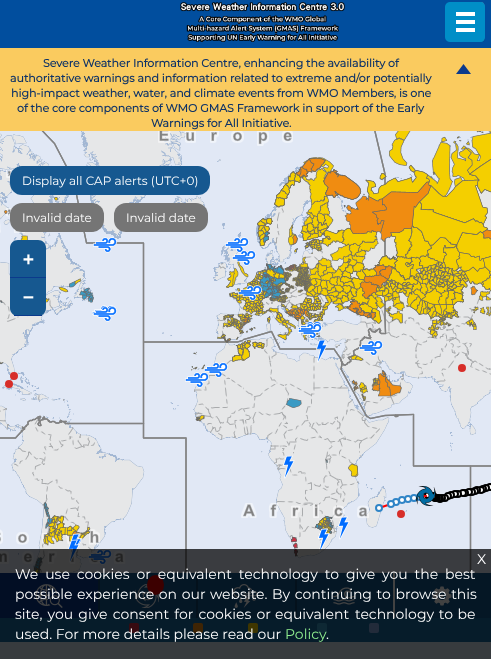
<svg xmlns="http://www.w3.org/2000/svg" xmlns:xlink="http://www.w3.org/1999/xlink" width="491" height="659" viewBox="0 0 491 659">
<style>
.cls-1{font:bold 11px Montserrat;fill:#0f3367}
.cls-2{font:12px Montserrat;fill:#ffffff}
.cls-3{font:bold 18px DejaVu Sans Mono;fill:#ffffff}
.cls-4{font:14px Montserrat;fill:#ffffff}
.cls-5{font:14px Montserrat;fill:#90ee90}
</style>
<rect width="100%" height="100%" fill="#ffffff"/>
<rect fill="#014e9e" x="0" y="0" width="491" height="48"/>
<image xlink:href="image0.png" x="445" y="2" width="40" height="40"/>
<image xlink:href="image1.png" x="180" y="2" width="165" height="40"/>
<rect fill="#facb5f" x="0" y="48" width="491" height="83"/>
<path fill="#0b3a8c" d="M463.5 64L471 74H456Z"/>
<image xlink:href="image2.png" x="0" y="131" width="491" height="442"/>
<image xlink:href="image3.png" x="0" y="197" width="243" height="225"/>
<image xlink:href="image4.png" x="243" y="131" width="248" height="277"/>
<image xlink:href="image5.png" x="33" y="502" width="58" height="71"/>
<image xlink:href="image6.png" x="291" y="459" width="68" height="98"/>
<image xlink:href="image7.png" x="93" y="237" width="24" height="16"/>
<image xlink:href="image8.png" x="225" y="237" width="24" height="16"/>
<image xlink:href="image9.png" x="232" y="250" width="24" height="16"/>
<image xlink:href="image10.png" x="238" y="285" width="24" height="16"/>
<image xlink:href="image11.png" x="92" y="305" width="24" height="16"/>
<image xlink:href="image12.png" x="93" y="306" width="24" height="16"/>
<image xlink:href="image13.png" x="298" y="321" width="24" height="15"/>
<image xlink:href="image14.png" x="298" y="323" width="24" height="16"/>
<image xlink:href="image15.png" x="298" y="323" width="24" height="16"/>
<image xlink:href="image16.png" x="316" y="339" width="12" height="24"/>
<image xlink:href="image17.png" x="359" y="340" width="24" height="16"/>
<image xlink:href="image29.png" x="5" y="364" width="486" height="154"/>
<image xlink:href="image18.png" x="204" y="362" width="24" height="16"/>
<image xlink:href="image19.png" x="185" y="372" width="24" height="16"/>
<image xlink:href="image20.png" x="283" y="455" width="12" height="24"/>
<image xlink:href="image21.png" x="416" y="486" width="20" height="20"/>
<image xlink:href="image22.png" x="318" y="528" width="12" height="24"/>
<image xlink:href="image23.png" x="338" y="516" width="12" height="24"/>
<image xlink:href="image26.png" x="71" y="533" width="12" height="24"/>
<image xlink:href="image24.png" x="70" y="533" width="12" height="21"/>
<image xlink:href="image25.png" x="318" y="528" width="12" height="24"/>
<image xlink:href="image27.png" x="68" y="539" width="12" height="24"/>
<image xlink:href="image28.png" x="88" y="549" width="24" height="16"/>
<rect fill="#165890" x="10" y="166" width="200" height="29" rx="12"/>
<rect fill="#757575" x="10" y="203" width="94" height="29" rx="12"/>
<rect fill="#757575" x="114" y="203" width="94" height="29" rx="12"/>
<path fill="#165890" d="M18 240H38C42.5 240 46 243.5 46 248V278H10V248C10 243.5 13.5 240 18 240Z"/>
<rect fill="#0b3a8c" x="10" y="277" width="36" height="1"/>
<path fill="#165890" d="M10 278H46V308C46 312.5 42.5 316 38 316H18C13.5 316 10 312.5 10 308Z"/>
<rect fill="#0b3a8c" x="14" y="315" width="28" height="1"/>
<rect fill="#09398d" x="0" y="573" width="98" height="45"/>
<image xlink:href="image30.png" x="35" y="584" width="28" height="24"/>
<rect fill="#15588f" x="100" y="573" width="96" height="45"/>
<image xlink:href="image31.png" x="135" y="584" width="24" height="24"/>
<rect fill="#10426b" x="98" y="573" width="2" height="45"/>
<rect fill="#15588f" x="198" y="573" width="97" height="45"/>
<image xlink:href="image32.png" x="232" y="584" width="26" height="24"/>
<rect fill="#10426b" x="196" y="573" width="2" height="45"/>
<rect fill="#15588f" x="297" y="573" width="96" height="45"/>
<image xlink:href="image33.png" x="333" y="587" width="22" height="18"/>
<rect fill="#10426b" x="295" y="573" width="2" height="45"/>
<rect fill="#15588f" x="395" y="573" width="96" height="45"/>
<image xlink:href="image34.png" x="432" y="586" width="20" height="20"/>
<ellipse fill="#e60000" cx="155.5" cy="585" rx="8.5" ry="10"/>
<rect fill="#196ca2" x="0" y="618" width="491" height="24"/>
<rect fill="#d42d41" x="129" y="623" width="10" height="10" rx="2"/>
<rect fill="#f08c11" x="193" y="623" width="10" height="10" rx="2"/>
<rect fill="#f4cf00" x="248" y="623" width="10" height="10" rx="2"/>
<rect fill="#399cc7" x="317" y="623" width="10" height="10" rx="2"/>
<rect fill="#82a8df" x="369" y="623" width="10" height="10" rx="2"/>
<rect fill="#d5e3f0" x="0" y="642" width="491" height="17"/>
<rect fill="#000000" fill-opacity="0.74" x="0" y="549" width="491" height="110"/>
<text class="cls-1" x="43" y="67">Severe Weather Information Centre, enhancing the availability of</text>
<text class="cls-1" x="10" y="82">authoritative warnings and information related to extreme and/or potentially</text>
<text class="cls-1" x="11" y="97">high-impact weather, water, and climate events from WMO Members, is one</text>
<text class="cls-1" x="17" y="112">of the core components of WMO GMAS Framework in support of the Early</text>
<text class="cls-1" x="151" y="127">Warnings for All Initiative.</text>
<text class="cls-2" x="22" y="185">Display all CAP alerts (UTC+0)</text>
<text class="cls-2" x="22" y="222">Invalid date</text>
<text class="cls-2" x="126" y="222">Invalid date</text>
<text class="cls-3" x="23" y="265">+</text>
<text class="cls-3" x="23" y="303">−</text>
<text class="cls-4" x="477" y="564">X</text>
<text class="cls-4"><tspan x="15" y="579" word-spacing="3.25">We use cookies or equivalent technology to give you the best</tspan><tspan x="15" y="599" word-spacing="1">possible experience on our</tspan></text>
<text class="cls-4" x="210" y="599">website.</text>
<text class="cls-4" x="272" y="599" word-spacing="1">By continuing to browse this</text>
<text class="cls-4" x="15" y="619" word-spacing="1.5">site, you give consent for cookies or</text>
<text class="cls-4" x="275" y="619">equivalent</text>
<text class="cls-4" x="355" y="619" word-spacing="1">technology to be</text>
<text class="cls-4" x="15" y="639">used. For more details please read our</text>
<text class="cls-5" x="285" y="639">Policy</text>
<text class="cls-4" x="326" y="639">.</text>
</svg>
